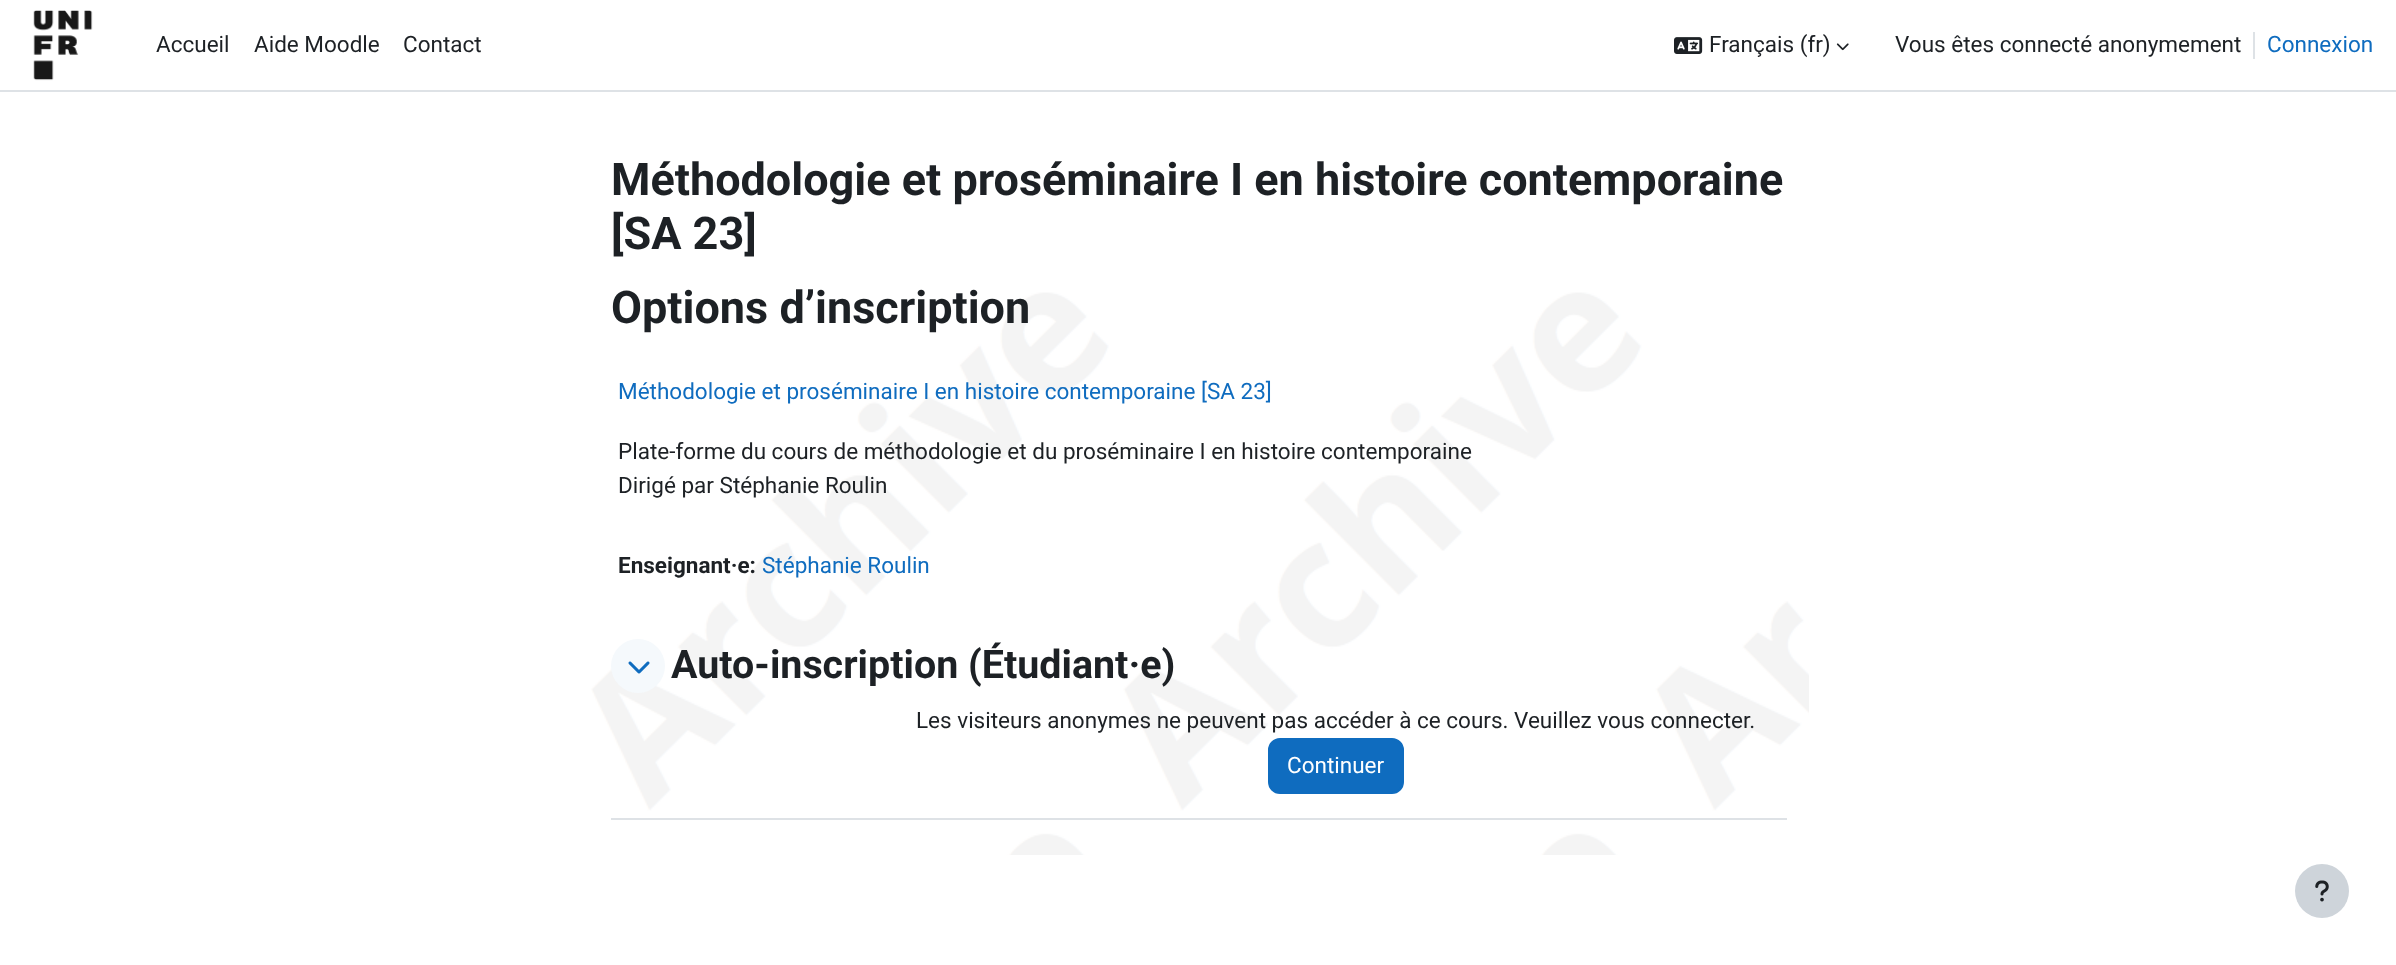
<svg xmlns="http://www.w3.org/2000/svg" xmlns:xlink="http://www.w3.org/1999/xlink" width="2396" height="965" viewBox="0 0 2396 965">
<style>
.cls-1{font:22.5px Roboto;fill:#1d2125}
.cls-2{font:22.5px Roboto;fill:#0f6cbf}
.cls-3{font:bold 45px Roboto;fill:#1d2125}
.cls-4{font:bold 22.5px Roboto;fill:#1d2125}
.cls-5{font:bold 39.4px Roboto;fill:#1d2125}
.cls-6{font:22.5px Roboto;fill:#ffffff}
</style>
<rect width="100%" height="100%" fill="#ffffff"/>
<rect fill="#dee2e6" x="0" y="90" width="2396" height="2"/>
<image xlink:href="image0.png" x="33" y="10" width="60" height="71"/>
<image xlink:href="image1.png" x="1674" y="37" width="29" height="17"/>
<image xlink:href="image2.png" x="1836" y="43" width="13" height="8"/>
<rect fill="#dee2e6" x="2253" y="32" width="2" height="27"/>
<image xlink:href="image3.png" x="591" y="292" width="1218" height="563"/>
<rect fill="#dee2e6" x="611" y="818" width="1176" height="2"/>
<circle fill="#f5f9fc" cx="638" cy="666" r="27"/>
<image xlink:href="image4.png" x="628" y="661" width="22" height="13"/>
<rect fill="#0f6cbf" stroke="#0f6cbf" stroke-width="2" x="1269" y="739" width="134" height="54" rx="11"/>
<circle fill="#ced4da" cx="2322" cy="891" r="27"/>
<image xlink:href="image5.png" x="2315" y="880" width="14" height="22"/>
<text class="cls-1" x="156" y="52">Accueil</text>
<text class="cls-1" x="254" y="52">Aide Moodle</text>
<text class="cls-1" x="403" y="52">Contact</text>
<text class="cls-1" x="1709" y="52">Français (fr)</text>
<text class="cls-1" x="1895" y="52">Vous êtes connecté anonymement</text>
<text class="cls-2" x="2267" y="52">Connexion</text>
<text class="cls-3"><tspan x="611" y="195">Méthodologie et proséminaire I en histoire contemporaine</tspan><tspan x="611" y="249">[SA 23]</tspan><tspan x="611" y="323">Options d’inscription</tspan></text>
<text class="cls-2" x="618" y="399">Méthodologie et proséminaire I en histoire contemporaine [SA 23]</text>
<text class="cls-1"><tspan x="618" y="459">Plate-forme du cours de méthodologie et du proséminaire I en histoire contemporaine</tspan><tspan x="618" y="493">Dirigé par Stéphanie Roulin</tspan></text>
<text class="cls-4" x="618" y="573">Enseignant·e:</text>
<text class="cls-2" x="762" y="573">Stéphanie Roulin</text>
<text class="cls-5" x="671" y="678">Auto-inscription (Étudiant·e)</text>
<text class="cls-1" x="916" y="728">Les visiteurs anonymes ne peuvent pas accéder à ce cours. Veuillez vous connecter.</text>
<text class="cls-6" x="1287" y="773">Continuer</text>
</svg>
